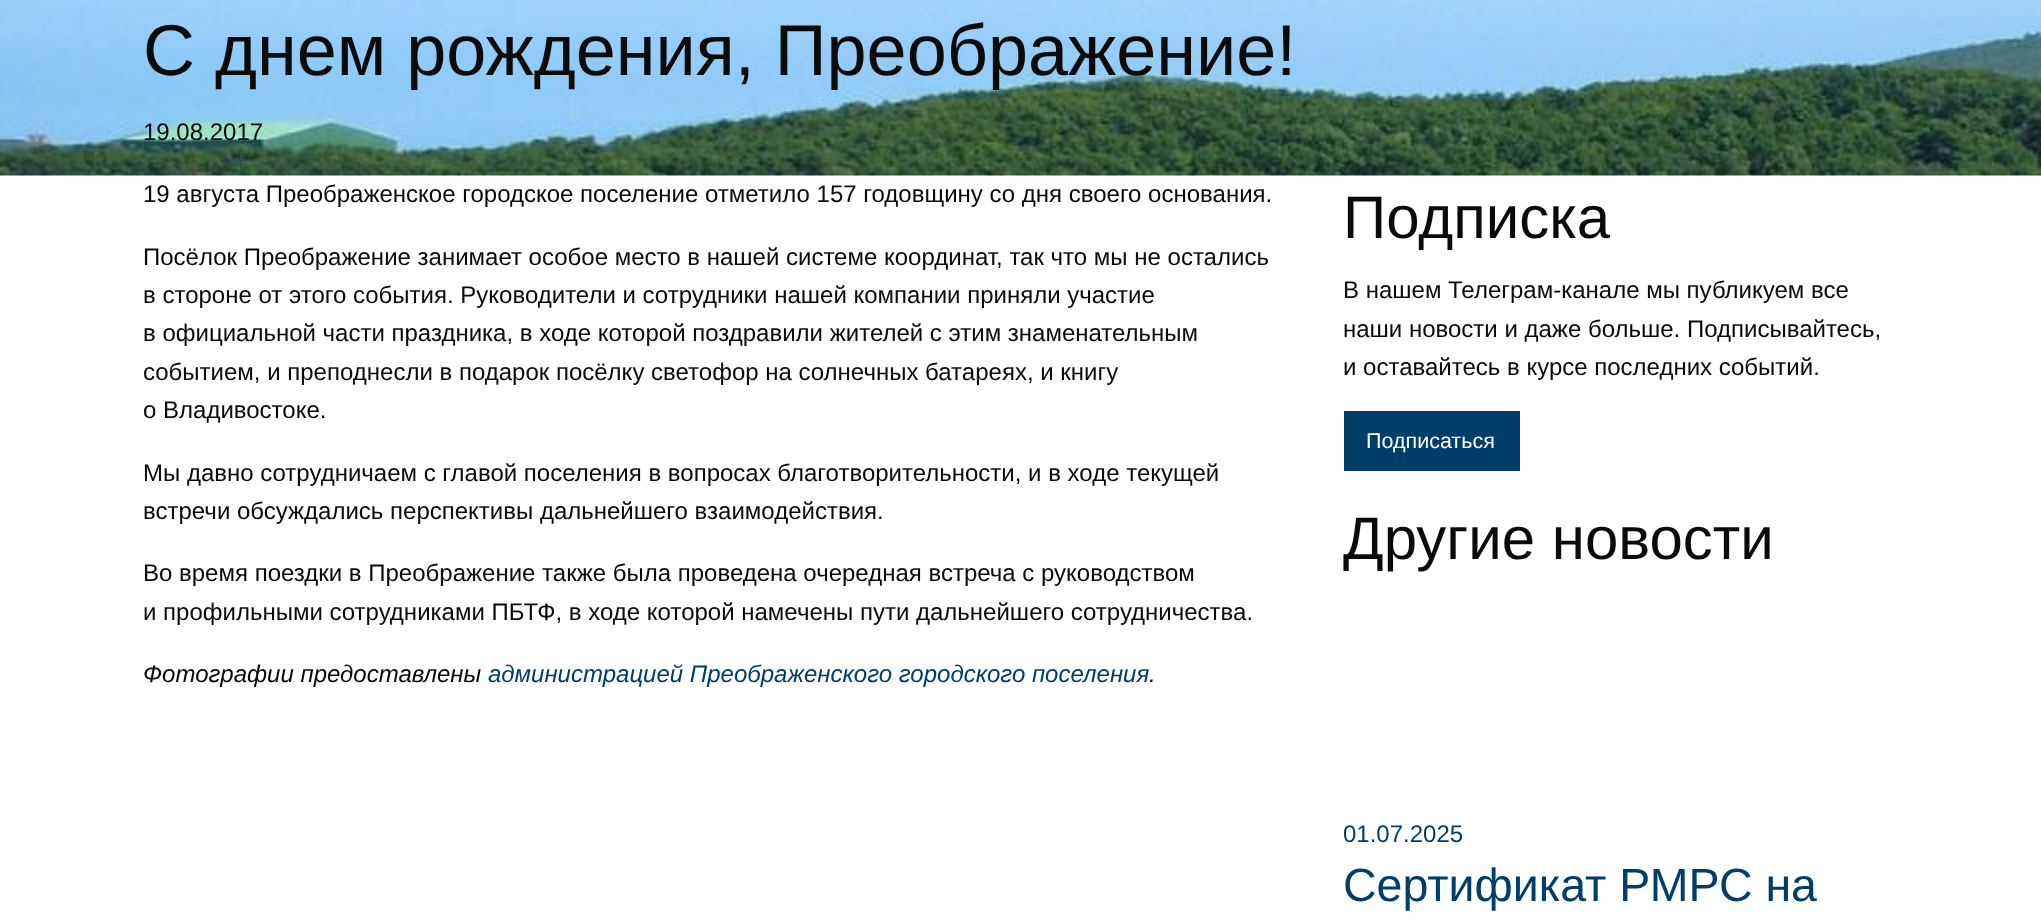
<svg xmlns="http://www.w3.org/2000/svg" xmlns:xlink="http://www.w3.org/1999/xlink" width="2041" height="920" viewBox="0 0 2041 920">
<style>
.cls-1{font:72px Liberation Sans;fill:#0a0a0a}
.cls-2{font:24px Liberation Sans;fill:#0a0a0a}
.cls-3{font:italic 24px Liberation Sans;fill:#0a0a0a}
.cls-4{font:italic 24px Liberation Sans;fill:#003e67}
.cls-5{font:60px Liberation Sans;fill:#0a0a0a}
.cls-6{font:21.5px Liberation Sans;fill:#fefefe}
.cls-7{font:24px Liberation Sans;fill:#003e67}
.cls-8{font:46.5px Liberation Sans;fill:#003e67}
</style>
<rect width="100%" height="100%" fill="#ffffff"/>
<image xlink:href="image0.png" x="0" y="0" width="2041" height="176"/>
<rect fill="#003e67" x="1344" y="411" width="176" height="60"/>
<text class="cls-1" x="143" y="75">С днем рождения, Преображение!</text>
<text class="cls-2" x="143" y="140">19.08.2017</text>
<text class="cls-2" x="143" y="202">19 августа Преображенское городское поселение отметило 157 годовщину со дня своего основания.</text>
<text class="cls-2"><tspan x="143" y="265">Посёлок Преображение занимает особое место в нашей системе координат, так что мы не остались</tspan><tspan x="143" y="303">в стороне от этого события. Руководители и сотрудники нашей компании приняли участие</tspan><tspan x="143" y="341">в официальной части праздника, в ходе которой поздравили жителей с этим знаменательным</tspan><tspan x="143" y="380">событием, и преподнесли в подарок посёлку светофор на солнечных батареях, и книгу</tspan><tspan x="143" y="418">о Владивостоке.</tspan></text>
<text class="cls-2"><tspan x="143" y="481">Мы давно сотрудничаем с главой поселения в вопросах благотворительности, и в ходе текущей</tspan><tspan x="143" y="519">встречи обсуждались перспективы дальнейшего взаимодействия.</tspan></text>
<text class="cls-2"><tspan x="143" y="581">Во время поездки в Преображение также была проведена очередная встреча с руководством</tspan><tspan x="143" y="620">и профильными сотрудниками ПБТФ, в ходе которой намечены пути дальнейшего сотрудничества.</tspan></text>
<text class="cls-3" x="143" y="682">Фотографии предоставлены</text>
<text class="cls-4" x="488" y="682">администрацией Преображенского городского поселения</text>
<text class="cls-3" x="1149" y="682">.</text>
<text class="cls-5" x="1343" y="238">Подписка</text>
<text class="cls-2"><tspan x="1343" y="298">В нашем Телеграм-канале мы публикуем все</tspan><tspan x="1343" y="337">наши новости и даже больше. Подписывайтесь,</tspan><tspan x="1343" y="375">и оставайтесь в курсе последних событий.</tspan></text>
<text class="cls-6" x="1366" y="448">Подписаться</text>
<text class="cls-5" x="1343" y="559">Другие новости</text>
<text class="cls-7" x="1343" y="842">01.07.2025</text>
<text class="cls-8" x="1343" y="901">Сертификат РМРС на</text>
</svg>
